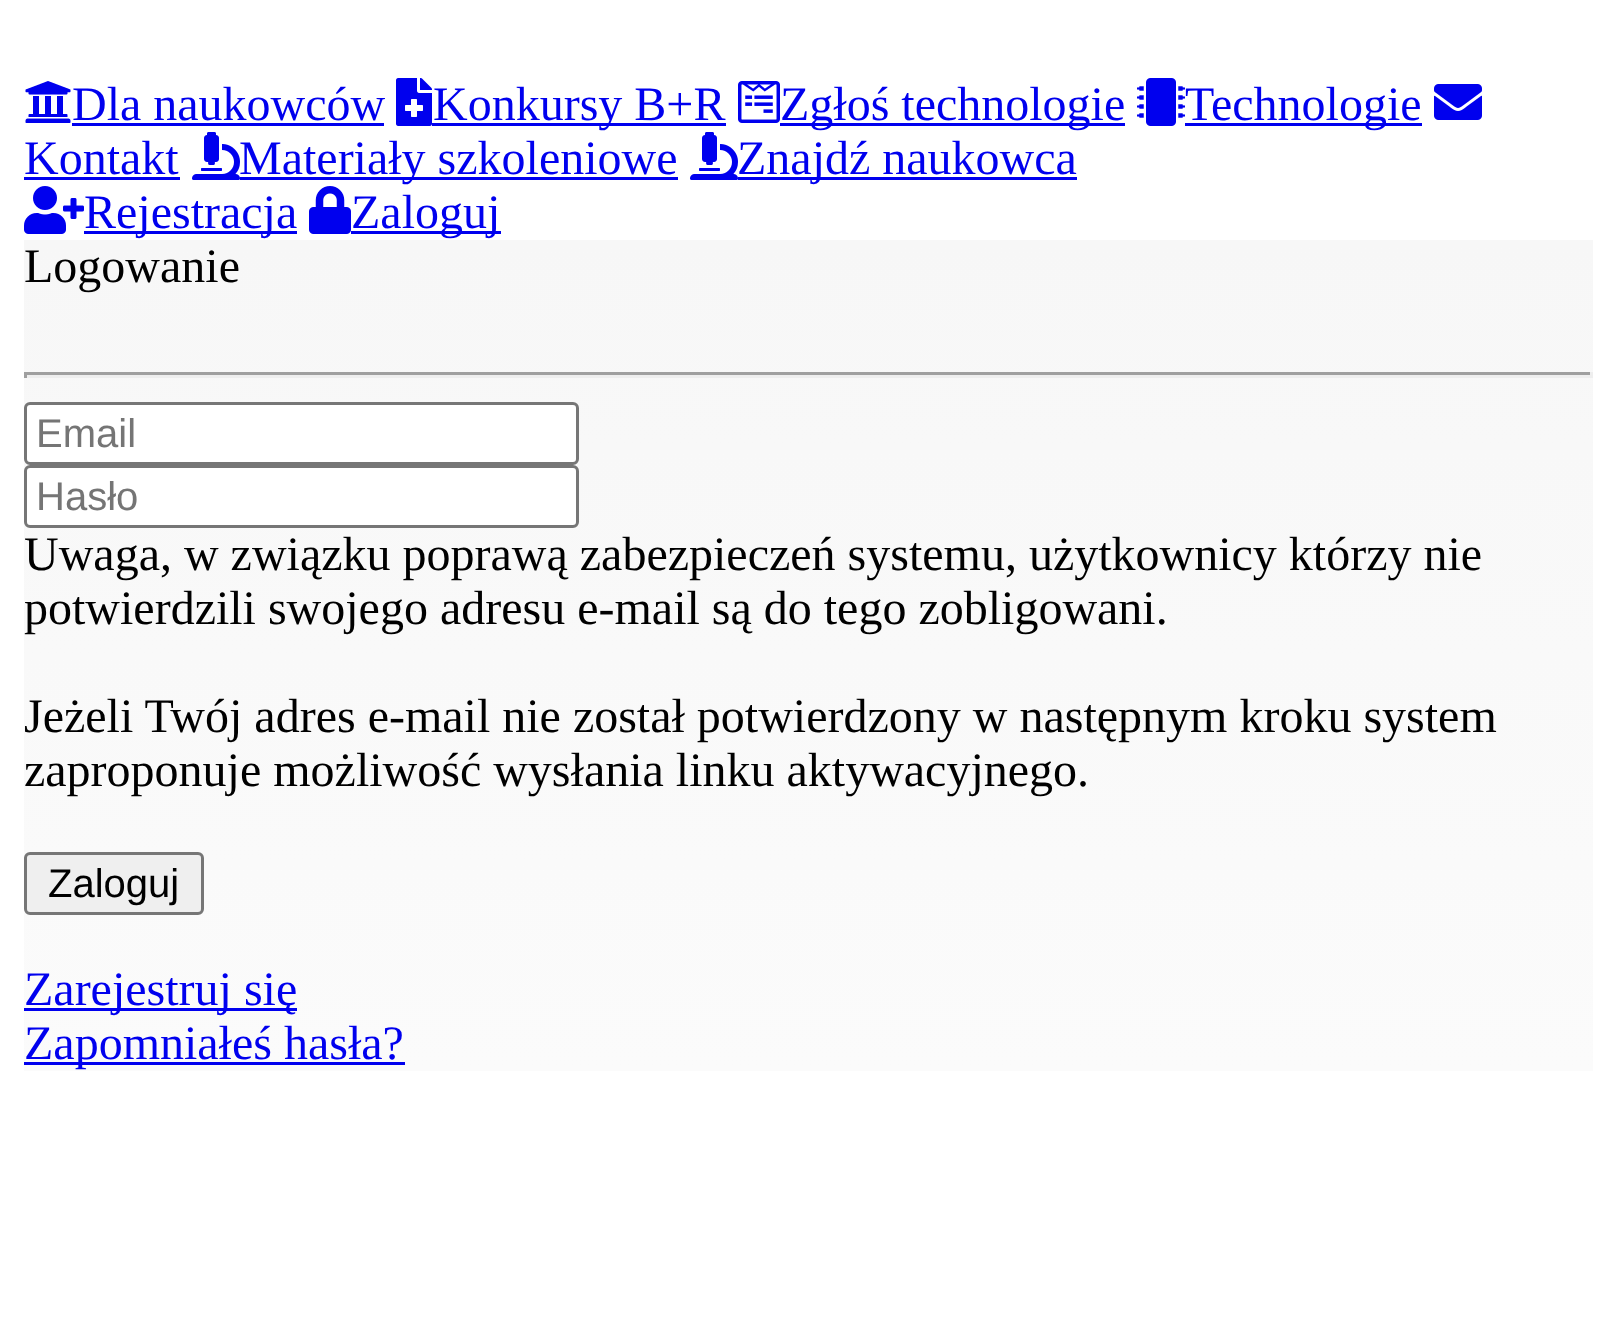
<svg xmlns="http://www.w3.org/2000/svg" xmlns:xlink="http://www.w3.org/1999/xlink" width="1617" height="1334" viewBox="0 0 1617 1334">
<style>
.cls-1{font:48px Liberation Serif;fill:#0000ee}
.cls-2{font:48px Liberation Serif;fill:#000000}
.cls-3{font:40px Liberation Sans;fill:#757575}
.cls-4{font:40px Liberation Sans;fill:#000000}
</style>
<defs>
<linearGradient id="g1" gradientUnits="userSpaceOnUse" x1="809" y1="240" x2="809" y2="1071"><stop offset="0" stop-color="#f7f7f7"/><stop offset="1" stop-color="#fbfbfb"/></linearGradient>
</defs>
<rect width="100%" height="100%" fill="#ffffff"/>
<image xlink:href="image0.png" x="25" y="81" width="46" height="42"/>
<rect fill="#0000ee" x="72" y="123" width="312" height="3"/>
<image xlink:href="image1.png" x="396" y="78" width="36" height="48"/>
<rect fill="#0000ee" x="432" y="123" width="294" height="3"/>
<image xlink:href="image2.png" x="738" y="81" width="42" height="42"/>
<rect fill="#0000ee" x="780" y="123" width="345" height="3"/>
<image xlink:href="image3.png" x="1137" y="78" width="48" height="48"/>
<rect fill="#0000ee" x="1185" y="123" width="237" height="3"/>
<image xlink:href="image4.png" x="1434" y="84" width="48" height="36"/>
<rect fill="#0000ee" x="24" y="177" width="156" height="3"/>
<image xlink:href="image5.png" x="192" y="132" width="48" height="48"/>
<rect fill="#0000ee" x="240" y="177" width="438" height="3"/>
<image xlink:href="image5.png" x="690" y="132" width="48" height="48"/>
<rect fill="#0000ee" x="738" y="177" width="339" height="3"/>
<image xlink:href="image6.png" x="24" y="186" width="60" height="48"/>
<rect fill="#0000ee" x="84" y="231" width="213" height="3"/>
<image xlink:href="image7.png" x="309" y="186" width="42" height="48"/>
<rect fill="#0000ee" x="351" y="231" width="150" height="3"/>
<rect fill="url(#g1)" x="24" y="240" width="1569" height="831"/>
<rect fill="#9f9f9f" x="24" y="372" width="1569" height="3"/>
<rect fill="#eeeeee" x="1590" y="372" width="3" height="6"/>
<rect fill="#eeeeee" x="24" y="375" width="1569" height="3"/>
<rect fill="#9f9f9f" x="24" y="372" width="3" height="6"/>
<rect fill="#ffffff" stroke="#767676" stroke-width="3" x="25.5" y="403.5" width="552" height="60" rx="4.5"/>
<rect fill="#ffffff" stroke="#767676" stroke-width="3" x="25.5" y="466.5" width="552" height="60" rx="4.5"/>
<rect fill="#efefef" stroke="#767676" stroke-width="3" x="25.5" y="853.5" width="177" height="60" rx="4.5"/>
<rect fill="#0000ee" x="24" y="1008" width="273" height="3"/>
<rect fill="#0000ee" x="24" y="1062" width="381" height="3"/>
<text class="cls-1" x="72" y="120">Dla naukowców</text>
<text class="cls-1" x="433" y="120">Konkursy B+R</text>
<text class="cls-1" x="780" y="120">Zgłoś technologie</text>
<text class="cls-1" x="1185" y="120">Technologie</text>
<text class="cls-1" x="24" y="174">Kontakt</text>
<text class="cls-1" x="239" y="174">Materiały szkoleniowe</text>
<text class="cls-1" x="737" y="174">Znajdź naukowca</text>
<text class="cls-1" x="84" y="228">Rejestracja</text>
<text class="cls-1" x="351" y="228">Zaloguj</text>
<text class="cls-2" x="24" y="282">Logowanie</text>
<text class="cls-3"><tspan x="36" y="447">Email</tspan><tspan x="36" y="510">Hasło</tspan></text>
<text class="cls-2"><tspan x="24" y="570">Uwaga, w związku poprawą zabezpieczeń systemu, użytkownicy którzy nie</tspan><tspan x="24" y="624">potwierdzili swojego adresu e-mail są do tego zobligowani.</tspan></text>
<text class="cls-2"><tspan x="24" y="732">Jeżeli Twój adres e-mail nie został potwierdzony w następnym kroku system</tspan><tspan x="24" y="786">zaproponuje możliwość wysłania linku aktywacyjnego.</tspan></text>
<text class="cls-4" x="48" y="897">Zaloguj</text>
<text class="cls-1"><tspan x="24" y="1005">Zarejestruj się</tspan><tspan x="24" y="1059">Zapomniałeś hasła?</tspan></text>
</svg>
